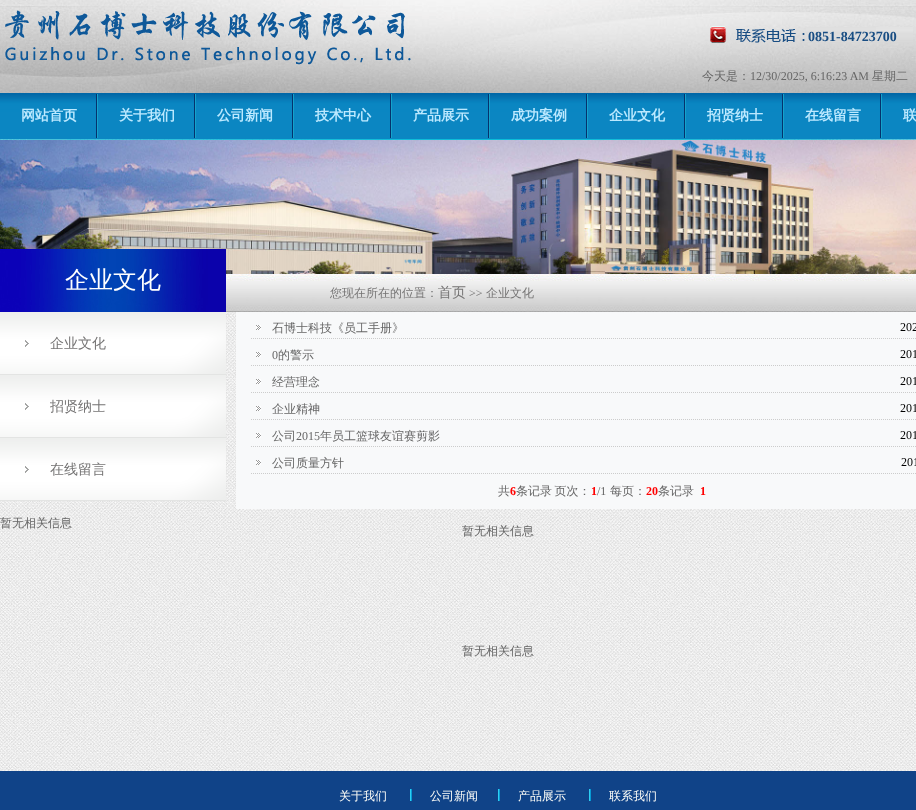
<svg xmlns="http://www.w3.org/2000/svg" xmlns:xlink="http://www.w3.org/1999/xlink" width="916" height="810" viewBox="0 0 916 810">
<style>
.cls-1{font:bold 14px Liberation Serif;fill:#184d83}
.cls-2{font:500 12px WenQuanYi Zen Hei;fill:#666666}
.cls-3{font:12px Liberation Serif;fill:#666666}
.cls-4{font:bold 14px WenQuanYi Zen Hei;fill:#bce9ff}
.cls-5{font:500 24px WenQuanYi Zen Hei;fill:#ffffff}
.cls-6{font:500 14px WenQuanYi Zen Hei;fill:#757474}
.cls-7{font:12px Liberation Serif;fill:#000000}
.cls-8{font:bold 12px Liberation Serif;fill:#ff0000}
.cls-9{font:500 12px WenQuanYi Zen Hei;fill:#757474}
.cls-10{font:12px Liberation Serif;fill:#757474}
.cls-11{font:500 12px WenQuanYi Zen Hei;fill:#fefef8}
</style>
<rect width="100%" height="100%" fill="#ffffff"/>
<image xlink:href="image0.png" x="0" y="312" width="916" height="459"/>
<image xlink:href="image1.png" x="0" y="0" width="916" height="140"/>
<image xlink:href="image2.png" x="5" y="10" width="406" height="55"/>
<image xlink:href="image3.png" x="710" y="26" width="203" height="17"/>
<image xlink:href="image4.png" x="0" y="93" width="916" height="46"/>
<image xlink:href="image5.png" x="96" y="94" width="2" height="44"/>
<image xlink:href="image5.png" x="194" y="94" width="2" height="44"/>
<image xlink:href="image5.png" x="292" y="94" width="2" height="44"/>
<image xlink:href="image5.png" x="390" y="94" width="2" height="44"/>
<image xlink:href="image5.png" x="488" y="94" width="2" height="44"/>
<image xlink:href="image5.png" x="586" y="94" width="2" height="44"/>
<image xlink:href="image5.png" x="684" y="94" width="2" height="44"/>
<image xlink:href="image5.png" x="782" y="94" width="2" height="44"/>
<image xlink:href="image5.png" x="880" y="94" width="2" height="44"/>
<image xlink:href="image6.png" x="0" y="140" width="916" height="134"/>
<image xlink:href="image7.png" x="0" y="249" width="226" height="63"/>
<image xlink:href="image8.png" x="0" y="312" width="226" height="63"/>
<image xlink:href="image8.png" x="0" y="375" width="226" height="63"/>
<image xlink:href="image8.png" x="0" y="438" width="226" height="63"/>
<rect fill="#f8f9fa" x="236" y="312" width="680" height="197"/>
<image xlink:href="image9.png" x="256" y="325" width="5" height="5"/>
<path fill="none" stroke="#cccccc" stroke-dasharray="1 1" d="M251 338.5H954"/>
<image xlink:href="image9.png" x="256" y="352" width="5" height="5"/>
<path fill="none" stroke="#cccccc" stroke-dasharray="1 1" d="M251 365.5H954"/>
<image xlink:href="image9.png" x="256" y="379" width="5" height="5"/>
<path fill="none" stroke="#cccccc" stroke-dasharray="1 1" d="M251 392.5H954"/>
<image xlink:href="image9.png" x="256" y="406" width="5" height="5"/>
<path fill="none" stroke="#cccccc" stroke-dasharray="1 1" d="M251 419.5H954"/>
<image xlink:href="image9.png" x="256" y="433" width="5" height="5"/>
<path fill="none" stroke="#cccccc" stroke-dasharray="1 1" d="M251 446.5H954"/>
<image xlink:href="image9.png" x="256" y="460" width="5" height="5"/>
<path fill="none" stroke="#cccccc" stroke-dasharray="1 1" d="M251 473.5H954"/>
<image xlink:href="image10.png" x="226" y="274" width="690" height="38"/>
<rect fill="#104388" x="0" y="771" width="916" height="39"/>
<image xlink:href="image11.png" x="410" y="789" width="2" height="12"/>
<image xlink:href="image11.png" x="498" y="789" width="2" height="12"/>
<image xlink:href="image11.png" x="589" y="789" width="2" height="12"/>
<text class="cls-1" x="808" y="41">0851-84723700</text>
<text class="cls-2" x="702" y="80">今天是：</text>
<text class="cls-3" x="750" y="80">12/30/2025, 6:16:23 AM</text>
<text class="cls-2" x="872" y="80">星期二</text>
<text class="cls-4" x="21" y="120">网站首页</text>
<text class="cls-4" x="119" y="120">关于我们</text>
<text class="cls-4" x="217" y="120">公司新闻</text>
<text class="cls-4" x="315" y="120">技术中心</text>
<text class="cls-4" x="413" y="120">产品展示</text>
<text class="cls-4" x="511" y="120">成功案例</text>
<text class="cls-4" x="609" y="120">企业文化</text>
<text class="cls-4" x="707" y="120">招贤纳士</text>
<text class="cls-4" x="805" y="120">在线留言</text>
<text class="cls-4" x="903" y="120">联</text>
<text class="cls-5" x="65" y="288">企业文化</text>
<text class="cls-6" x="50" y="348">企业文化</text>
<text class="cls-6" x="50" y="411">招贤纳士</text>
<text class="cls-6" x="50" y="474">在线留言</text>
<text class="cls-2" x="0" y="527">暂无相关信息</text>
<text class="cls-2" x="272" y="332">石博士科技《员工手册》</text>
<text class="cls-7" x="900" y="331">202</text>
<text class="cls-3" x="272" y="359">0</text>
<text class="cls-2" x="278" y="359">的警示</text>
<text class="cls-7" x="900" y="358">201</text>
<text class="cls-2" x="272" y="386">经营理念</text>
<text class="cls-7" x="900" y="385">201</text>
<text class="cls-2" x="272" y="413">企业精神</text>
<text class="cls-7" x="900" y="412">201</text>
<text class="cls-2" x="272" y="440">公司</text>
<text class="cls-3" x="296" y="440">2015</text>
<text class="cls-2" x="320" y="440">年员工篮球友谊赛剪影</text>
<text class="cls-7" x="900" y="439">201</text>
<text class="cls-2" x="272" y="467">公司质量方针</text>
<text class="cls-7" x="901" y="466">201</text>
<text class="cls-2" x="498" y="495">共</text>
<text class="cls-8" x="510" y="495">6</text>
<text class="cls-2" x="516" y="495" word-spacing="-1">条记录 页次：</text>
<text class="cls-8" x="591" y="495">1</text>
<text class="cls-3" x="597" y="495">/1</text>
<text class="cls-2" x="610" y="495">每页：</text>
<text class="cls-8" x="646" y="495">20</text>
<text class="cls-2" x="658" y="495">条记录</text>
<text class="cls-8" x="700" y="495">1</text>
<text class="cls-9" x="330" y="297">您现在所在的位置：</text>
<text class="cls-6" x="438" y="297">首页</text>
<text class="cls-10" x="469" y="297">&gt;&gt;</text>
<text class="cls-9" x="486" y="297">企业文化</text>
<text class="cls-2" x="462" y="535">暂无相关信息</text>
<text class="cls-2" x="462" y="655">暂无相关信息</text>
<text class="cls-11" x="339" y="800">关于我们</text>
<text class="cls-11" x="430" y="800">公司新闻</text>
<text class="cls-11" x="518" y="800">产品展示</text>
<text class="cls-11" x="609" y="800">联系我们</text>
</svg>
